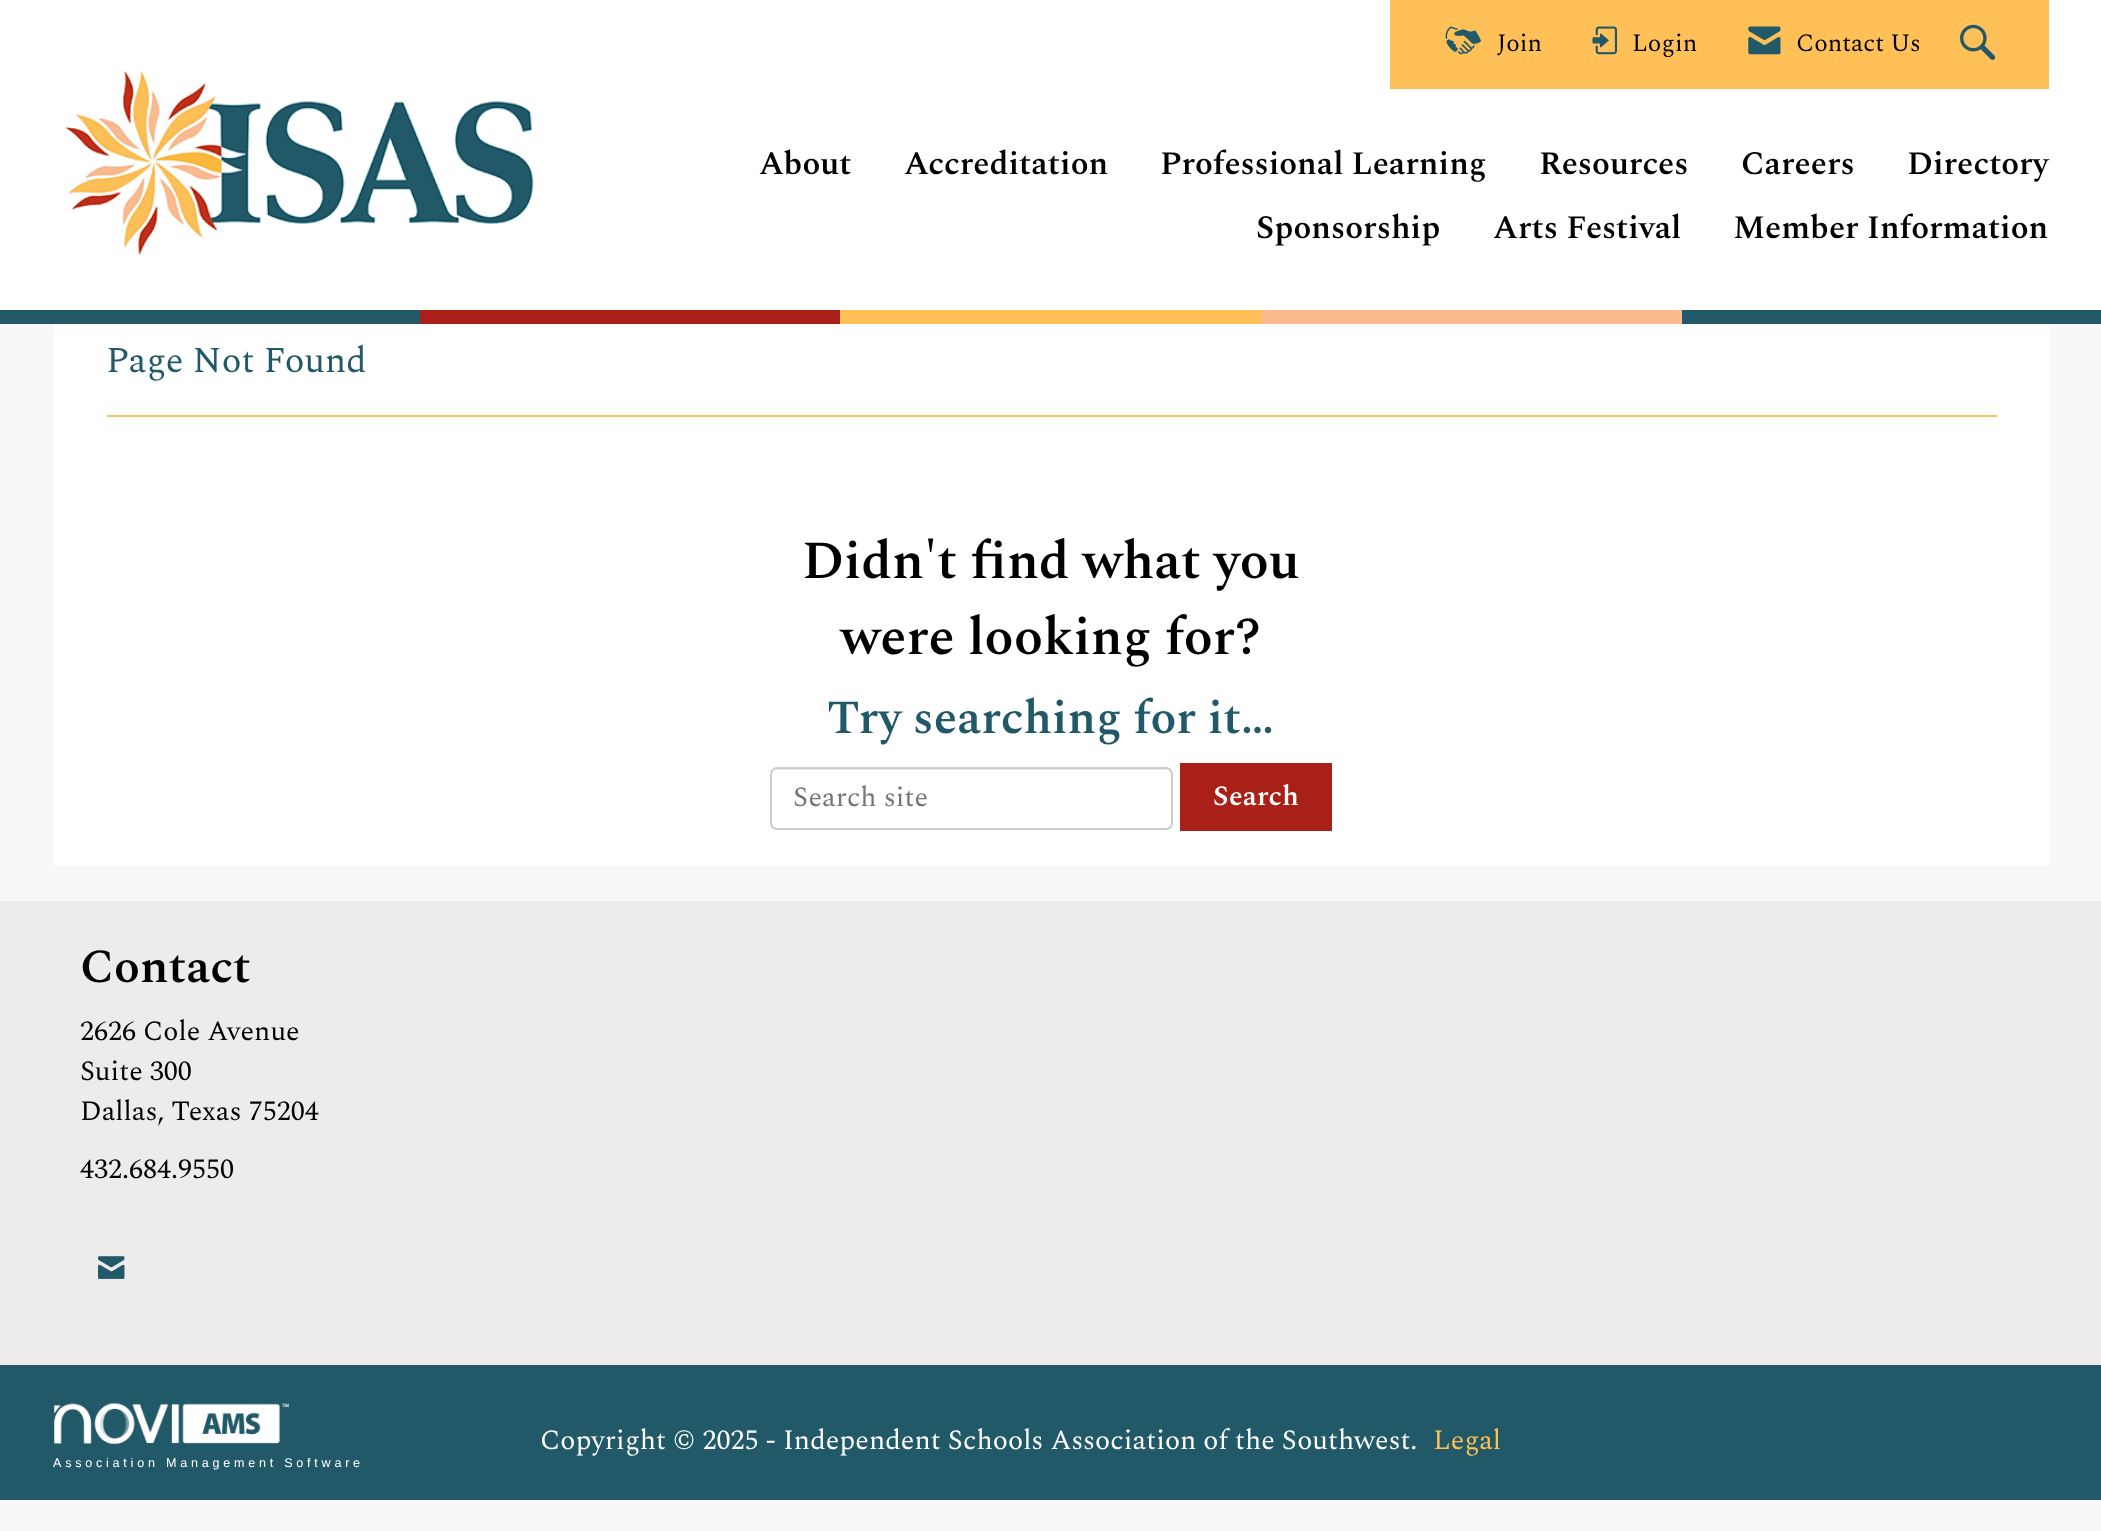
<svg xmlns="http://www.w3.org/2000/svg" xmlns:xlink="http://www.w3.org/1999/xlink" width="2101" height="1531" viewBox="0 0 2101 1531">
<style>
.cls-1{font:25px Spectral;fill:#000000}
.cls-2{font:600 32.75px Spectral;fill:#000000}
.cls-3{font:36.5px Spectral;fill:#215968}
.cls-4{font:600 53.25px Spectral;fill:#000000}
.cls-5{font:600 47.5px Spectral;fill:#215968}
.cls-6{font:28px Spectral;fill:#757575}
.cls-7{font:600 28px Spectral;fill:#ffffff}
.cls-8{font:600 47.5px Spectral;fill:#000000}
.cls-9{font:28px Spectral;fill:#000000}
.cls-10{font:28px Spectral;fill:#ffffff}
.cls-11{font:28px Spectral;fill:#fec057}
.cls-12{font:12.6px Liberation Sans;letter-spacing:3.75px;fill:#ffffff}
</style>
<rect width="100%" height="100%" fill="#f8f8f8"/>
<rect fill="#ffffff" x="0" y="0" width="2101" height="310"/>
<rect fill="#fec057" x="1390" y="0" width="659" height="89"/>
<image xlink:href="image0.png" x="1445" y="26" width="37" height="29"/>
<image xlink:href="image1.png" x="1592" y="26" width="25" height="29"/>
<image xlink:href="image2.png" x="1748" y="26" width="33" height="29"/>
<image xlink:href="image3.png" x="1960" y="24" width="36" height="36"/>
<image xlink:href="image4.png" x="65" y="71" width="469" height="184"/>
<rect fill="#215968" x="0" y="310" width="420" height="14"/>
<rect fill="#a92018" x="420" y="310" width="420" height="14"/>
<rect fill="#fec057" x="840" y="310" width="422" height="14"/>
<rect fill="#fbbb8f" x="1262" y="310" width="420" height="14"/>
<rect fill="#215968" x="1682" y="310" width="419" height="14"/>
<rect fill="#ffffff" x="54" y="324" width="1995" height="542"/>
<rect fill="#fec057" x="107" y="415" width="1890" height="2"/>
<path fill="#ececec" d="M777 770H1166C1168 770 1171 772 1171 775V773C1171 770 1169 768 1166 768H777C774 768 772 770 772 773V775C772 772 774 770 777 770Z"/>
<rect fill="none" stroke="#cccccc" stroke-width="2" x="771" y="768" width="401" height="61" rx="6"/>
<rect fill="#a92018" x="1180" y="763" width="152" height="68"/>
<rect fill="#edebec" x="0" y="901" width="2101" height="464"/>
<image xlink:href="image5.png" x="98" y="1256" width="27" height="23"/>
<rect fill="#215968" x="0" y="1365" width="2101" height="135"/>
<image xlink:href="image6.png" x="54" y="1403" width="235" height="41"/>
<text class="cls-1" x="1497" y="51">Join</text>
<text class="cls-1" x="1632" y="51">Login</text>
<text class="cls-1" x="1796" y="51">Contact Us</text>
<text class="cls-2" x="759" y="174">About</text>
<text class="cls-2" x="904" y="174">Accreditation</text>
<text class="cls-2" x="1160" y="174">Professional Learning</text>
<text class="cls-2" x="1539" y="174">Resources</text>
<text class="cls-2" x="1741" y="174">Careers</text>
<text class="cls-2" x="1907" y="174">Directory</text>
<text class="cls-2" x="1256" y="238">Sponsorship</text>
<text class="cls-2" x="1493" y="238">Arts Festival</text>
<text class="cls-2" x="1733" y="238">Member Information</text>
<text class="cls-3" x="106" y="372">Page Not Found</text>
<text class="cls-4" x="802" y="578">Didn't find what you</text>
<text class="cls-4" x="841" y="654">were looking for?</text>
<text class="cls-5" x="827" y="733">Try searching for it…</text>
<text class="cls-6" x="793" y="806">Search site</text>
<text class="cls-7" x="1213" y="805">Search</text>
<text class="cls-8" x="80" y="982">Contact</text>
<text class="cls-9"><tspan x="80" y="1040">2626 Cole Avenue</tspan><tspan x="80" y="1080">Suite 300</tspan><tspan x="80" y="1120">Dallas, Texas 75204</tspan></text>
<text class="cls-9" x="80" y="1178">432.684.9550</text>
<text class="cls-10" x="540" y="1449">Copyright © 2025 - Independent Schools Association of the Southwest.</text>
<text class="cls-11" x="1433" y="1449">Legal</text>
<text class="cls-12" x="53" y="1467">Association Management Software</text>
</svg>
